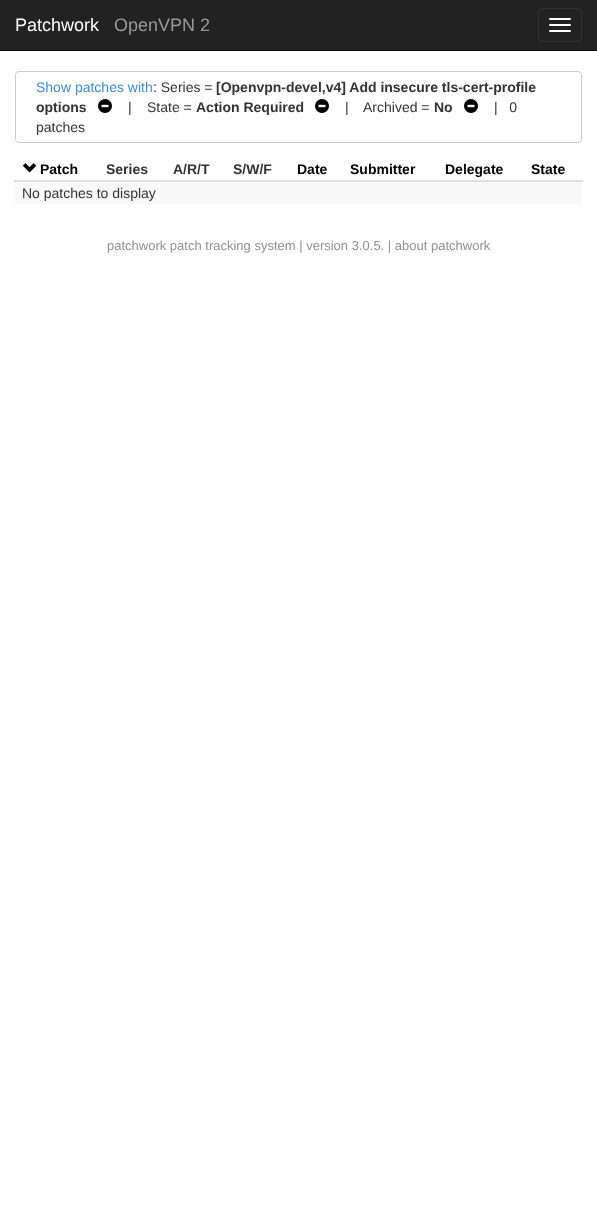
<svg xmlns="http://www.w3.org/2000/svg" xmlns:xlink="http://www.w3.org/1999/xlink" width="597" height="1212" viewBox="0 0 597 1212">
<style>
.cls-1{font:18px Liberation Sans;fill:#ffffff}
.cls-2{font:18px Liberation Sans;fill:#999999}
.cls-3{font:14px Liberation Sans;fill:#428bca}
.cls-4{font:14px Liberation Sans;fill:#333333}
.cls-5{font:bold 14px Liberation Sans;fill:#333333}
.cls-6{font:bold 14px Liberation Sans;fill:#000000}
.cls-7{font:13px Liberation Sans;fill:#909090}
</style>
<rect width="100%" height="100%" fill="#ffffff"/>
<rect fill="#222222" x="0" y="0" width="597" height="50"/>
<rect fill="#080808" x="0" y="50" width="597" height="1"/>
<rect fill="none" stroke="#333333" x="538.5" y="8.5" width="43" height="33" rx="3.5"/>
<rect fill="#ffffff" x="549" y="18" width="22" height="2" rx="1"/>
<rect fill="#ffffff" x="549" y="24" width="22" height="2" rx="1"/>
<rect fill="#ffffff" x="549" y="30" width="22" height="2" rx="1"/>
<rect fill="none" stroke="#cccccc" x="15.5" y="71.5" width="566" height="71" rx="3.5"/>
<image xlink:href="image0.png" x="98" y="99" width="14" height="14"/>
<image xlink:href="image0.png" x="315" y="99" width="14" height="14"/>
<image xlink:href="image0.png" x="464" y="99" width="14" height="14"/>
<image xlink:href="image1.png" x="22" y="163" width="15" height="10"/>
<rect fill="#dddddd" x="14" y="180" width="569" height="2"/>
<rect fill="#f9f9f9" x="15" y="182" width="567" height="22"/>
<text class="cls-1" x="15" y="31">Patchwork</text>
<text class="cls-2" x="114" y="31">OpenVPN 2</text>
<text class="cls-3" x="36" y="92">Show patches with</text>
<text class="cls-4" x="153" y="92">: Series =</text>
<text class="cls-5" x="216" y="92">[Openvpn-devel,v4] Add insecure tls-cert-profile</text>
<text class="cls-5" x="36" y="112">options</text>
<text class="cls-4" x="128" y="112">|</text>
<text class="cls-4" x="147" y="112">State =</text>
<text class="cls-5" x="196" y="112">Action Required</text>
<text class="cls-4" x="345" y="112">|</text>
<text class="cls-4" x="363" y="112">Archived =</text>
<text class="cls-5" x="434" y="112">No</text>
<text class="cls-4" xml:space="preserve" x="494" y="112">|   0</text>
<text class="cls-4" x="36" y="132">patches</text>
<text class="cls-6" x="40" y="174">Patch</text>
<text class="cls-5" x="106" y="174">Series</text>
<text class="cls-5" x="173" y="174">A/R/T</text>
<text class="cls-5" x="233" y="174">S/W/F</text>
<text class="cls-6" x="297" y="174">Date</text>
<text class="cls-6" x="350" y="174">Submitter</text>
<text class="cls-6" x="445" y="174">Delegate</text>
<text class="cls-6" x="531" y="174">State</text>
<text class="cls-4" x="22" y="198">No patches to display</text>
<text class="cls-7" x="107" y="250">patchwork patch tracking system | version 3.0.5. | about patchwork</text>
</svg>
